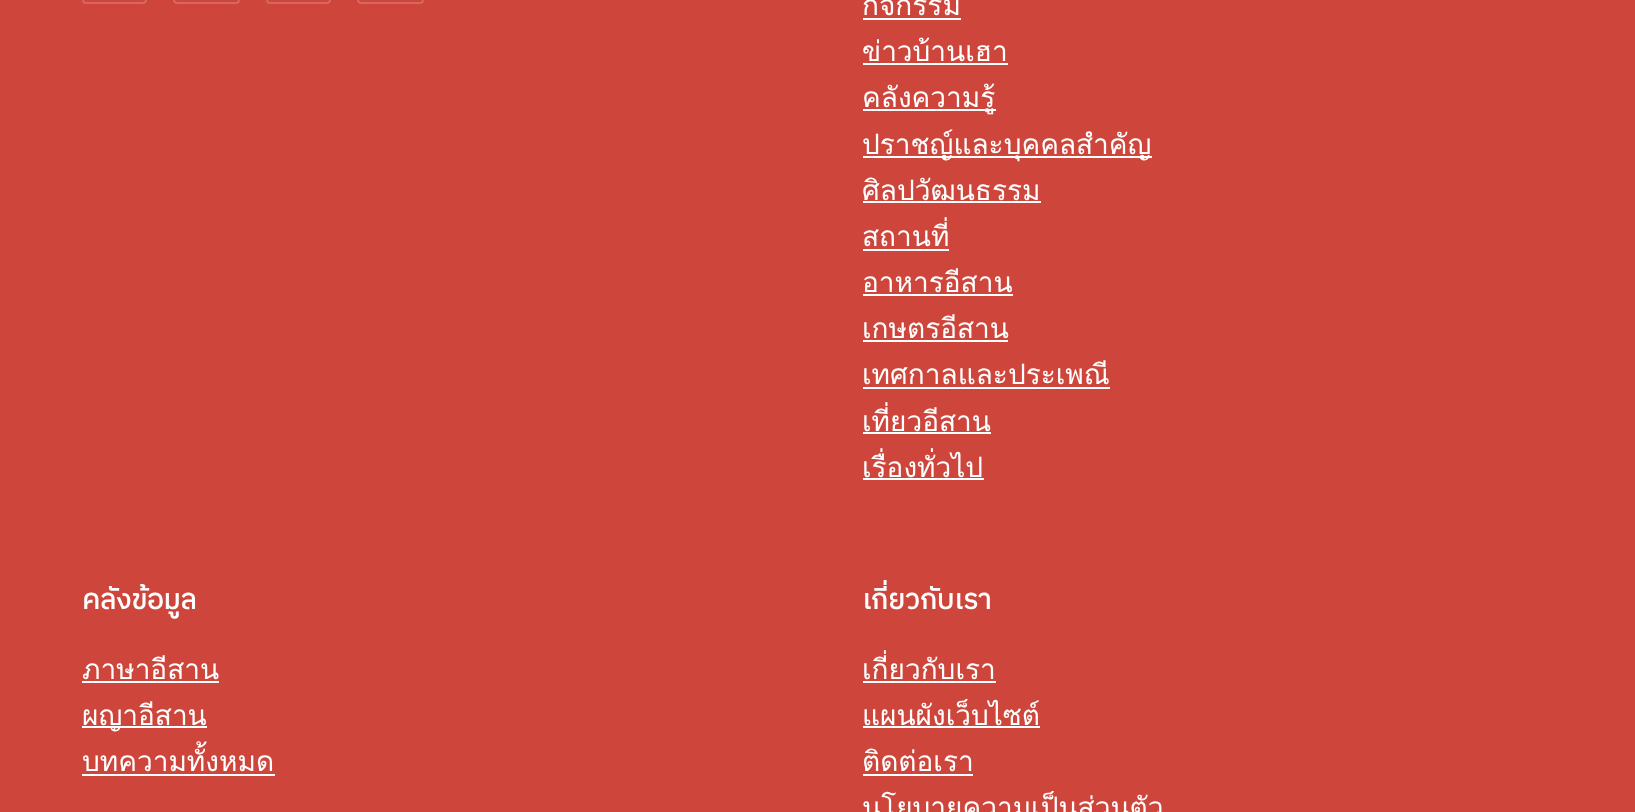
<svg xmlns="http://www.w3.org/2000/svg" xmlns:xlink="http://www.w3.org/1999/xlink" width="1635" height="812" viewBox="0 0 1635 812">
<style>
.cls-1{font:28px Loma;fill:#ffffff}
.cls-2{font:bold 28px IBM Plex Sans Thai;fill:#ffffff}
</style>
<rect width="100%" height="100%" fill="#ce463b"/>
<rect fill="none" stroke="#d7675e" stroke-width="2" x="83" y="-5" width="63" height="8" rx="3"/>
<rect fill="none" stroke="#d7675e" stroke-width="2" x="174" y="-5" width="65" height="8" rx="3"/>
<rect fill="none" stroke="#d7675e" stroke-width="2" x="267" y="-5" width="63" height="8" rx="3"/>
<rect fill="none" stroke="#d7675e" stroke-width="2" x="358" y="-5" width="65" height="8" rx="3"/>
<rect fill="#ffffff" x="863" y="18" width="98" height="2"/>
<rect fill="#ffffff" x="863" y="63" width="145" height="2"/>
<rect fill="#ffffff" x="863" y="109" width="133" height="2"/>
<rect fill="#ffffff" x="863" y="156" width="289" height="2"/>
<rect fill="#ffffff" x="863" y="201" width="178" height="2"/>
<rect fill="#ffffff" x="863" y="249" width="86" height="2"/>
<rect fill="#ffffff" x="863" y="294" width="150" height="2"/>
<rect fill="#ffffff" x="863" y="340" width="145" height="2"/>
<rect fill="#ffffff" x="863" y="387" width="247" height="2"/>
<rect fill="#ffffff" x="863" y="432" width="128" height="2"/>
<rect fill="#ffffff" x="863" y="478" width="121" height="2"/>
<rect fill="#ffffff" x="82" y="681" width="137" height="2"/>
<rect fill="#ffffff" x="82" y="726" width="125" height="2"/>
<rect fill="#ffffff" x="82" y="774" width="193" height="2"/>
<rect fill="#ffffff" x="863" y="681" width="133" height="2"/>
<rect fill="#ffffff" x="863" y="726" width="177" height="2"/>
<rect fill="#ffffff" x="863" y="774" width="110" height="2"/>
<text class="cls-1"><tspan x="862" y="15">กิจกรรม</tspan><tspan x="862" y="61">ข่าวบ้านเฮา</tspan><tspan x="862" y="107">คลังความรู้</tspan><tspan x="862" y="154">ปราชญ์และบุคคลสำคัญ</tspan><tspan x="862" y="200">ศิลปวัฒนธรรม</tspan><tspan x="862" y="246">สถานที่</tspan><tspan x="862" y="292">อาหารอีสาน</tspan><tspan x="862" y="338">เกษตรอีสาน</tspan><tspan x="862" y="384">เทศกาลและประเพณี</tspan><tspan x="862" y="431">เที่ยวอีสาน</tspan><tspan x="862" y="477">เรื่องทั่วไป</tspan></text>
<text class="cls-2" x="82" y="609">คลังข้อมูล</text>
<text class="cls-1"><tspan x="82" y="679">ภาษาอีสาน</tspan><tspan x="82" y="725">ผญาอีสาน</tspan><tspan x="82" y="771">บทความทั้งหมด</tspan></text>
<text class="cls-2" x="862" y="609">เกี่ยวกับเรา</text>
<text class="cls-1"><tspan x="862" y="679">เกี่ยวกับเรา</tspan><tspan x="862" y="725">แผนผังเว็บไซต์</tspan><tspan x="862" y="771">ติดต่อเรา</tspan><tspan x="862" y="817">นโยบายความเป็นส่วนตัว</tspan></text>
</svg>
